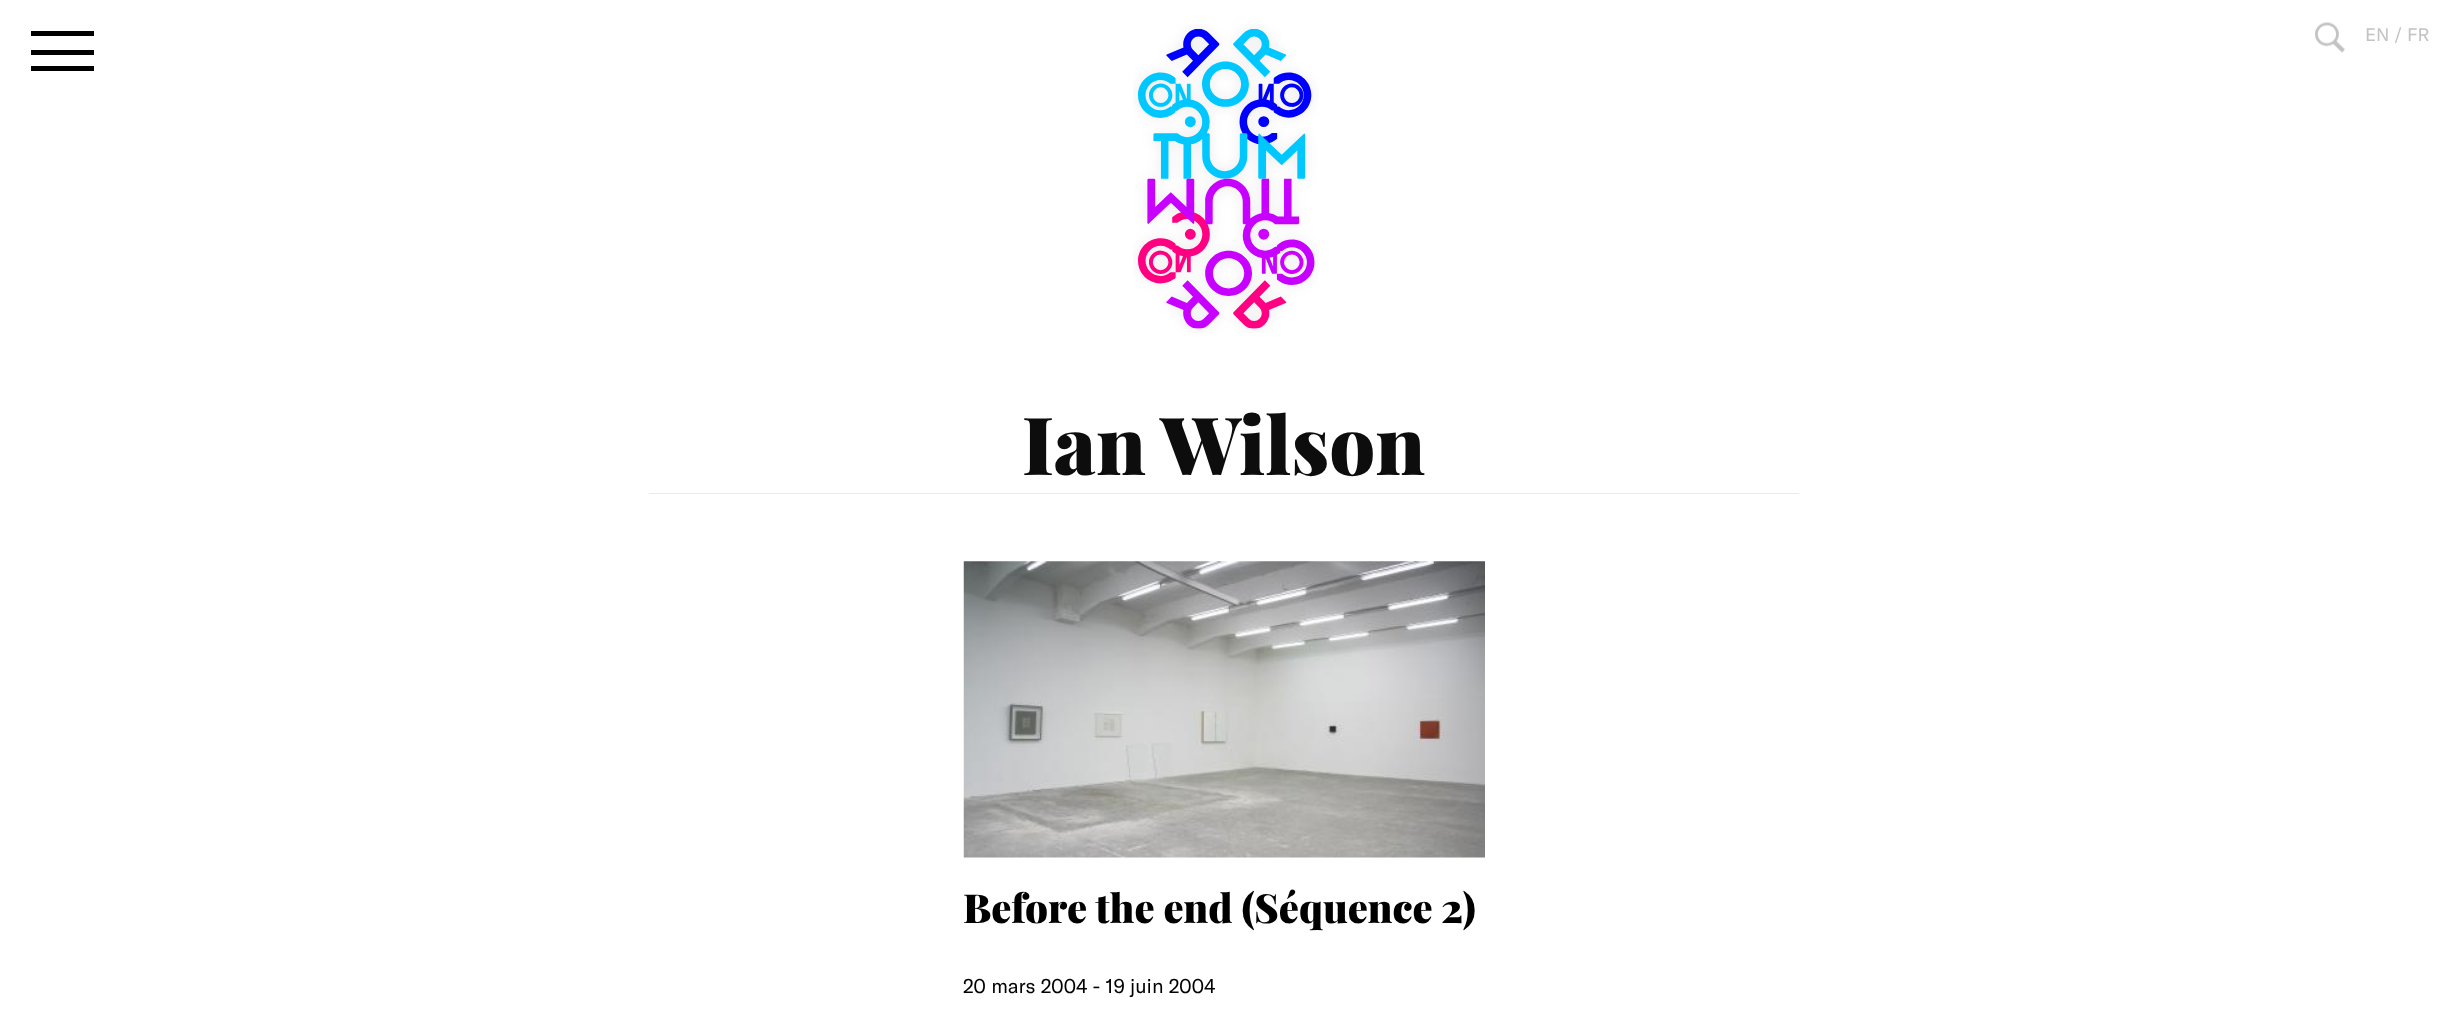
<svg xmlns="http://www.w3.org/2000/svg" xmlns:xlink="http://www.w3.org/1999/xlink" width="2447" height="1017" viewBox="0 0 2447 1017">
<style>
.cls-1{font:18px GT America;fill:#c3c3c3}
.cls-2{font:900 80px Playfair Display;fill:#0d0d0d}
.cls-3{font:900 40px Playfair Display;fill:#000000}
.cls-4{font:20px GT America;fill:#000000}
</style>
<rect width="100%" height="100%" fill="#ffffff"/>
<rect fill="#000000" x="31" y="31" width="63" height="5"/>
<rect fill="#000000" x="31" y="50" width="63" height="5"/>
<rect fill="#000000" x="31" y="66" width="63" height="5"/>
<image xlink:href="image0.png" x="1133" y="24" width="186" height="309"/>
<image xlink:href="image1.png" x="2315" y="22" width="30" height="31"/>
<rect fill="#eaeaea" x="649" y="493" width="1150" height="1"/>
<image xlink:href="image2.png" x="963" y="561" width="522" height="297"/>
<text class="cls-1" x="2365" y="41">EN</text>
<text class="cls-1" x="2394" y="41">/</text>
<text class="cls-1" x="2407" y="41">FR</text>
<text class="cls-2" x="1022" y="475">Ian Wilson</text>
<text class="cls-3" x="963" y="923">Before the end (Séquence 2)</text>
<text class="cls-4" x="963" y="993">20 mars 2004 - 19 juin 2004</text>
</svg>
